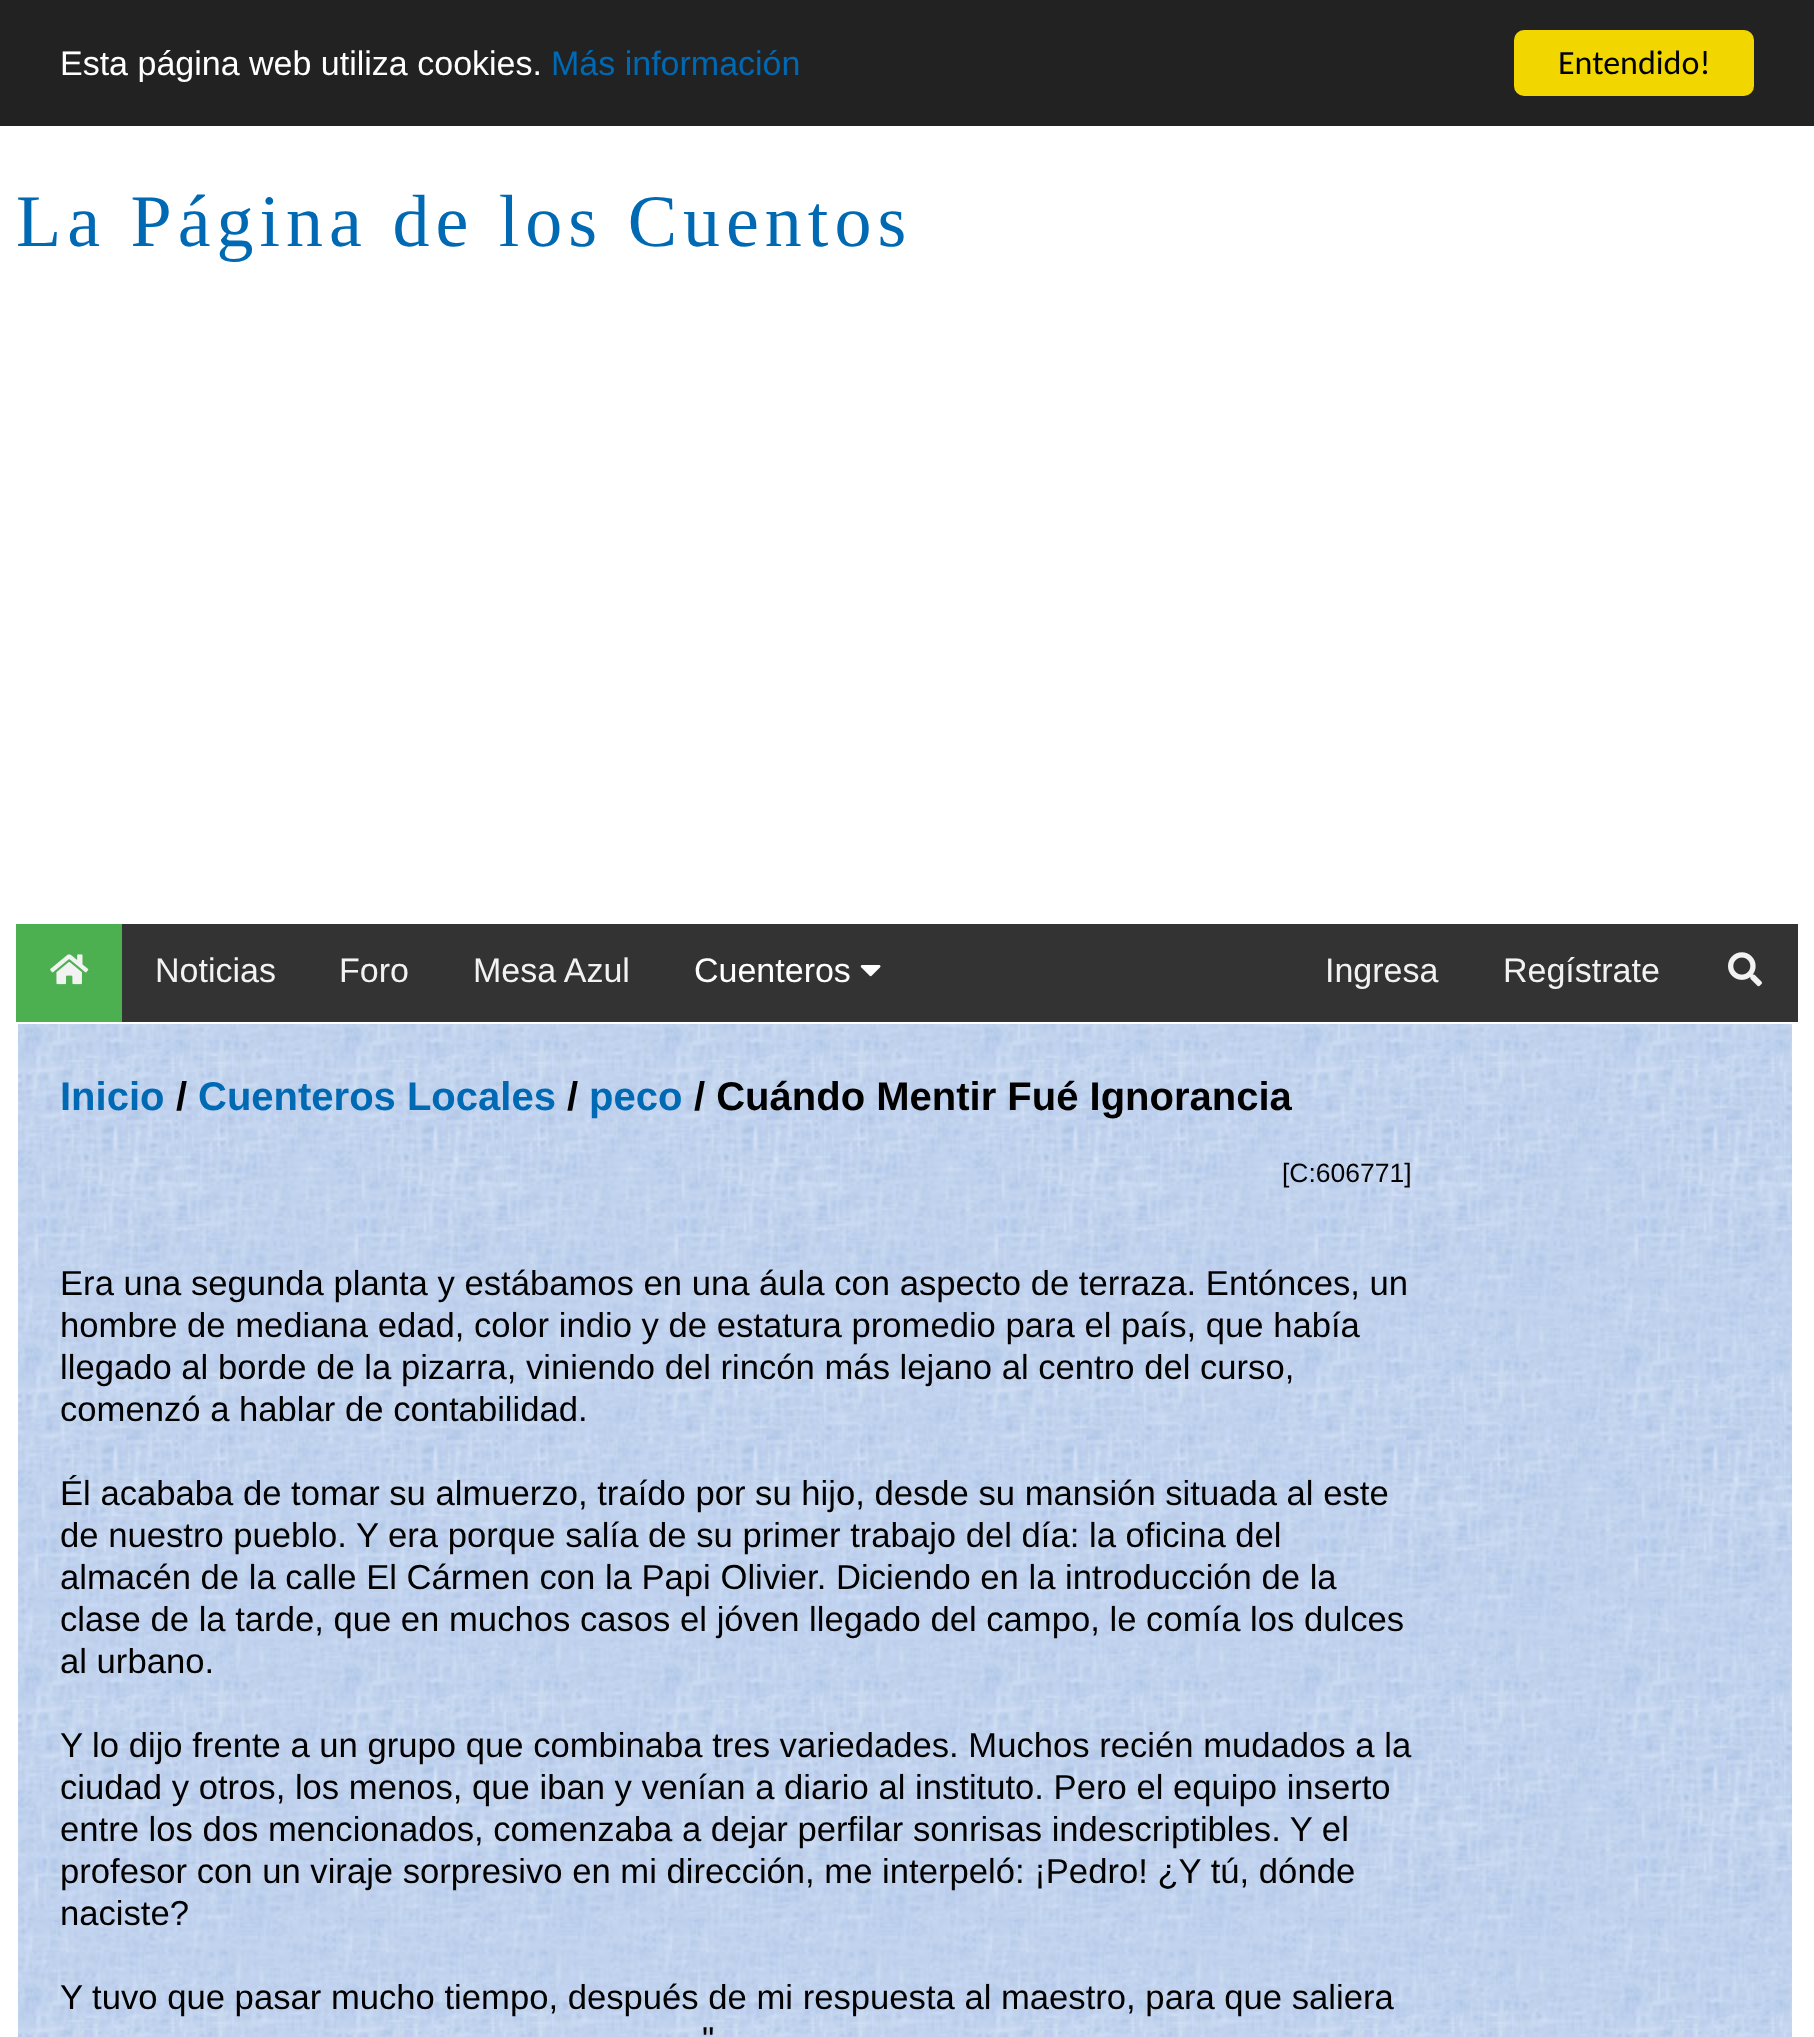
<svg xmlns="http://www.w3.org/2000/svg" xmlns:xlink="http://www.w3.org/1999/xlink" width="1814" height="2037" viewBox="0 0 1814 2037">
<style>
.cls-1{font:34px Liberation Sans;fill:#ffffff}
.cls-2{font:34px Liberation Sans;fill:#0069b3}
.cls-3{font:34px Carlito;fill:#000000}
.cls-4{font:74px Liberation Serif;letter-spacing:6px;fill:#0069b3}
.cls-5{font:34px Liberation Sans;fill:#f2f2f2}
.cls-6{font:bold 40px Liberation Sans;fill:#0069b3}
.cls-7{font:bold 40px Liberation Sans;fill:#000000}
.cls-8{font:26.5px Liberation Sans;fill:#000000}
.cls-9{font:34.65px Liberation Sans;fill:#000000}
</style>
<rect width="100%" height="100%" fill="#ffffff"/>
<rect fill="#222222" x="0" y="0" width="1814" height="126"/>
<rect fill="#f1d600" x="1514" y="30" width="240" height="66" rx="10"/>
<rect fill="#333333" x="122" y="924" width="1676" height="98"/>
<rect fill="#4caf50" x="16" y="924" width="106" height="98"/>
<image xlink:href="image0.png" x="50" y="954" width="39" height="31"/>
<image xlink:href="image1.png" x="860" y="965" width="21" height="12"/>
<image xlink:href="image2.png" x="1728" y="952" width="34" height="35"/>
<image xlink:href="image3.png" x="18" y="1024" width="1774" height="1013"/>
<text class="cls-1" x="60" y="75">Esta página web utiliza cookies.</text>
<text class="cls-2" x="551" y="75">Más información</text>
<text class="cls-3" x="1558" y="74">Entendido!</text>
<text class="cls-4" x="16" y="246">La Página de los Cuentos</text>
<text class="cls-5" x="155" y="982">Noticias</text>
<text class="cls-5" x="339" y="982">Foro</text>
<text class="cls-5" x="473" y="982">Mesa Azul</text>
<text class="cls-1" x="694" y="982">Cuenteros</text>
<text class="cls-5" x="1325" y="982">Ingresa</text>
<text class="cls-5" x="1503" y="982">Regístrate</text>
<text class="cls-6" x="60" y="1110">Inicio</text>
<text class="cls-7" x="176" y="1110">/</text>
<text class="cls-6" x="198" y="1110">Cuenteros Locales</text>
<text class="cls-7" x="567" y="1110">/</text>
<text class="cls-6" x="589" y="1110">peco</text>
<text class="cls-7" x="694" y="1110">/ Cuándo Mentir Fué Ignorancia</text>
<text class="cls-8" x="1282" y="1182">[C:606771]</text>
<text class="cls-9"><tspan x="60" y="1295">Era una segunda planta y estábamos en una áula con aspecto de terraza. Entónces, un</tspan><tspan x="60" y="1337">hombre de mediana edad, color indio y de estatura promedio para el país, que había</tspan><tspan x="60" y="1379">llegado al borde de la pizarra, viniendo del rincón más lejano al centro del curso,</tspan><tspan x="60" y="1421">comenzó a hablar de contabilidad.</tspan></text>
<text class="cls-9"><tspan x="60" y="1505">Él acababa de tomar su almuerzo, traído por su hijo, desde su mansión situada al este</tspan><tspan x="60" y="1547">de nuestro pueblo. Y era porque salía de su primer trabajo del día: la oficina del</tspan><tspan x="60" y="1589">almacén de la calle El Cármen con la Papi Olivier. Diciendo en la introducción de la</tspan><tspan x="60" y="1631">clase de la tarde, que en muchos casos el jóven llegado del campo, le comía los dulces</tspan><tspan x="60" y="1673">al urbano.</tspan></text>
<text class="cls-9"><tspan x="60" y="1757">Y lo dijo frente a un grupo que combinaba tres variedades. Muchos recién mudados a la</tspan><tspan x="60" y="1799">ciudad y otros, los menos, que iban y venían a diario al instituto. Pero el equipo inserto</tspan><tspan x="60" y="1841">entre los dos mencionados, comenzaba a dejar perfilar sonrisas indescriptibles. Y el</tspan><tspan x="60" y="1883">profesor con un viraje sorpresivo en mi dirección, me interpeló: ¡Pedro! ¿Y tú, dónde</tspan><tspan x="60" y="1925">naciste?</tspan></text>
<text class="cls-9" x="60" y="2009">Y tuvo que pasar mucho tiempo, después de mi respuesta al maestro, para que saliera</text>
<text class="cls-9" x="702" y="2051">"</text>
</svg>
